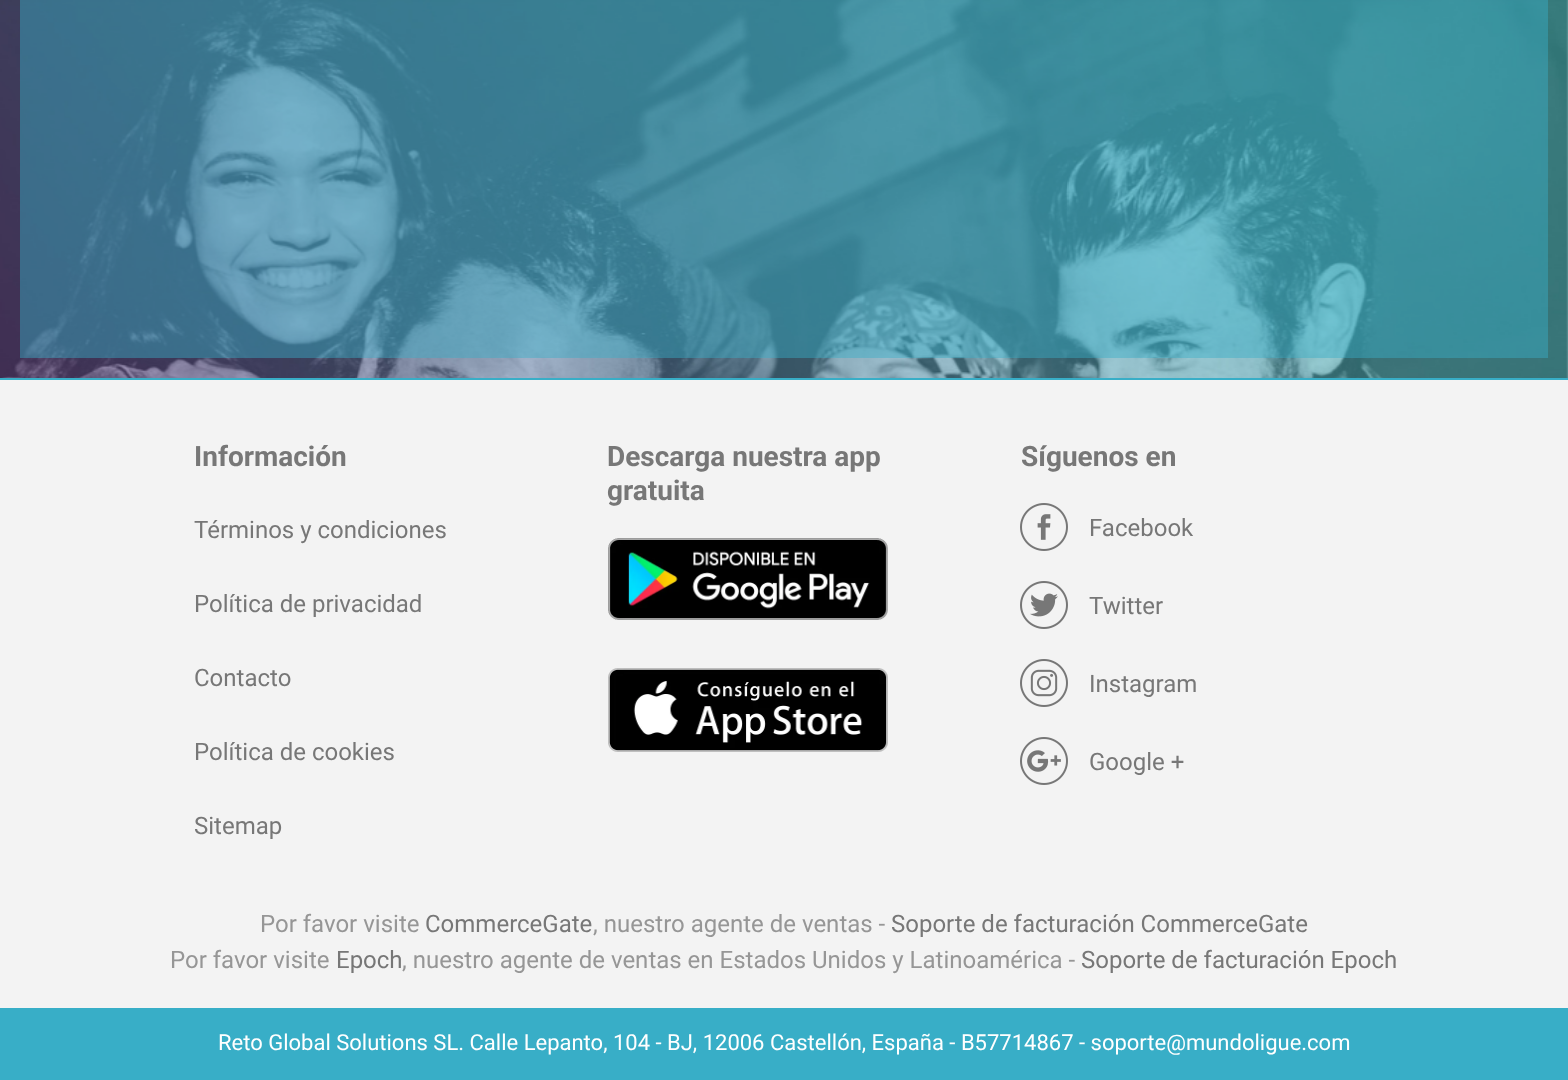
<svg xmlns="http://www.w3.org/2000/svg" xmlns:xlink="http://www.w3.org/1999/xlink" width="1568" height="1080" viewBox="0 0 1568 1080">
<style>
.cls-1{font:bold 28px Roboto;fill:#777777}
.cls-2{font:24px Roboto;fill:#777777}
.cls-3{font:24px Roboto;fill:#969696}
.cls-4{font:22px Roboto;fill:#ffffff}
</style>
<rect width="100%" height="100%" fill="#ffffff"/>
<image xlink:href="image0.png" x="0" y="0" width="1568" height="378"/>
<rect fill="#f3f3f3" x="0" y="380" width="1568" height="628"/>
<rect fill="#38aec7" x="0" y="378" width="1568" height="2"/>
<image xlink:href="image1.png" x="608" y="538" width="280" height="82"/>
<image xlink:href="image2.png" x="608" y="668" width="280" height="84"/>
<image xlink:href="image3.png" x="1020" y="503" width="48" height="48"/>
<image xlink:href="image4.png" x="1020" y="581" width="48" height="48"/>
<image xlink:href="image5.png" x="1020" y="659" width="48" height="48"/>
<image xlink:href="image6.png" x="1020" y="737" width="48" height="48"/>
<rect fill="#38aec7" x="0" y="1008" width="1568" height="72"/>
<text class="cls-1" x="194" y="466">Información</text>
<text class="cls-2" x="194" y="538">Términos y condiciones</text>
<text class="cls-2" x="194" y="612">Política de privacidad</text>
<text class="cls-2" x="194" y="686">Contacto</text>
<text class="cls-2" x="194" y="760">Política de cookies</text>
<text class="cls-2" x="194" y="834">Sitemap</text>
<text class="cls-1"><tspan x="607" y="466">Descarga nuestra app</tspan><tspan x="607" y="500">gratuita</tspan></text>
<text class="cls-1" x="1021" y="466">Síguenos en</text>
<text class="cls-2" x="1089" y="536">Facebook</text>
<text class="cls-2" x="1089" y="614">Twitter</text>
<text class="cls-2" x="1089" y="692">Instagram</text>
<text class="cls-2" x="1089" y="770">Google +</text>
<text class="cls-3" x="260" y="932">Por favor visite</text>
<text class="cls-2" x="425" y="932">CommerceGate</text>
<text class="cls-3" x="593" y="932">, nuestro agente de ventas -</text>
<text class="cls-2" x="891" y="932">Soporte de facturación CommerceGate</text>
<text class="cls-3" x="170" y="968">Por favor visite</text>
<text class="cls-2" x="336" y="968">Epoch</text>
<text class="cls-3" x="402" y="968">, nuestro agente de ventas en Estados Unidos y Latinoamérica -</text>
<text class="cls-2" x="1081" y="968">Soporte de facturación Epoch</text>
<text class="cls-4" x="218" y="1050">Reto Global Solutions SL. Calle Lepanto, 104 - BJ, 12006 Castellón, España - B57714867 - soporte@mundoligue.com</text>
</svg>
